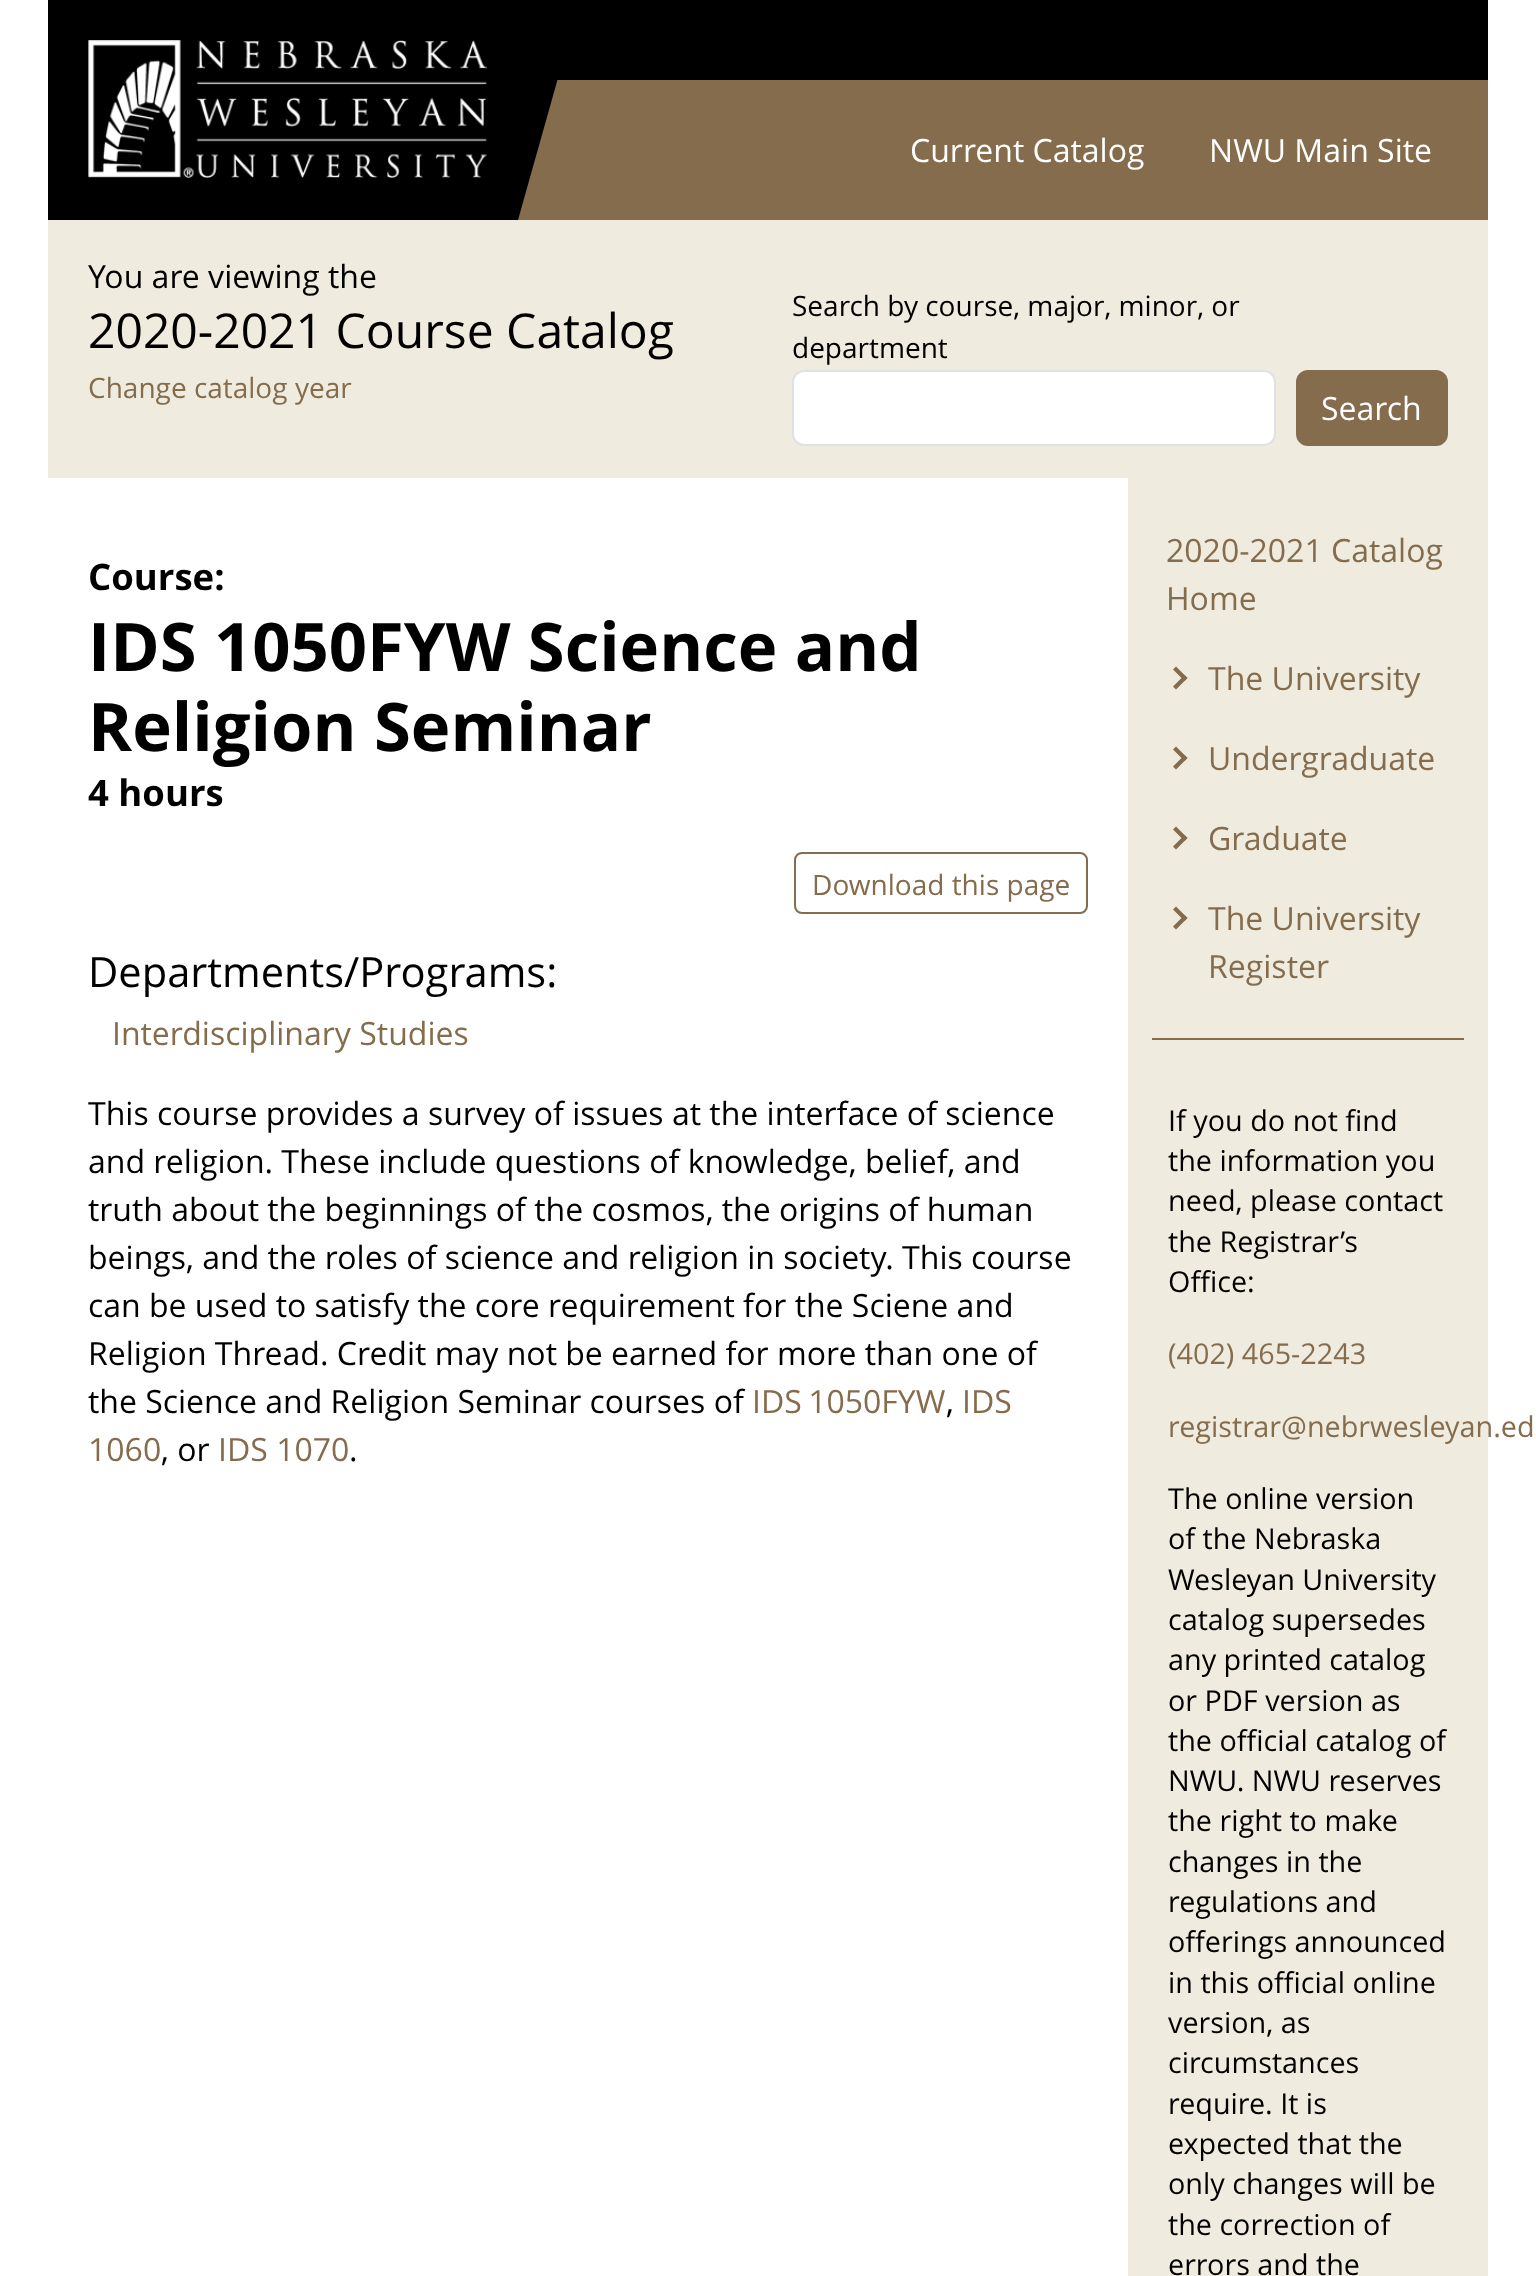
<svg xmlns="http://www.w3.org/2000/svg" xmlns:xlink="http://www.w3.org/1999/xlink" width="1536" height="2276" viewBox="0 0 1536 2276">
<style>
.cls-1{font:32px Open Sans;fill:#ffffff}
.cls-2{font:32px Open Sans;fill:#000000}
.cls-3{font:48px Open Sans;fill:#000000}
.cls-4{font:28px Open Sans;fill:#846c4d}
.cls-5{font:28px Open Sans;fill:#000000}
.cls-6{font:bold 36.5px Open Sans;fill:#000000}
.cls-7{font:bold 67px Open Sans;fill:#000000}
.cls-8{font:41.6px Open Sans;fill:#000000}
.cls-9{font:32px Open Sans;fill:#846c4d}
.cls-10{font:28.75px Open Sans;fill:#000000}
.cls-11{font:28.75px Open Sans;fill:#846c4d}
</style>
<rect width="100%" height="100%" fill="#ffffff"/>
<rect fill="#000000" x="48" y="0" width="1440" height="80"/>
<rect fill="#846c4d" x="518" y="80" width="970" height="140"/>
<rect fill="#000000" x="48" y="80" width="40" height="140"/>
<path fill="#000000" d="M88 78H558L518 220H48Z"/>
<image xlink:href="image0.png" x="88" y="40" width="399" height="138"/>
<rect fill="#efecdf" x="48" y="220" width="1440" height="258"/>
<rect fill="#ffffff" stroke="#dee2e6" stroke-width="2" x="793" y="371" width="482" height="74" rx="11"/>
<rect fill="#846c4d" stroke="#846c4d" stroke-width="2" x="1297" y="371" width="150" height="74" rx="11"/>
<rect fill="none" stroke="#846c4d" stroke-width="2" x="795" y="853" width="292" height="60" rx="7"/>
<rect fill="#efecdf" x="1128" y="478" width="360" height="1798"/>
<rect fill="#846c4d" x="1152" y="1038" width="312" height="2"/>
<path fill="#846c4d" d="M1173 669.5L1176 666.5L1187.5 678L1184.5 681Z"/>
<path fill="#846c4d" d="M1173 686.5L1184.5 675L1187.5 678L1176 689.5Z"/>
<path fill="#846c4d" d="M1173 749.5L1176 746.5L1187.5 758L1184.5 761Z"/>
<path fill="#846c4d" d="M1173 766.5L1184.5 755L1187.5 758L1176 769.5Z"/>
<path fill="#846c4d" d="M1173 829.5L1176 826.5L1187.5 838L1184.5 841Z"/>
<path fill="#846c4d" d="M1173 846.5L1184.5 835L1187.5 838L1176 849.5Z"/>
<path fill="#846c4d" d="M1173 909.5L1176 906.5L1187.5 918L1184.5 921Z"/>
<path fill="#846c4d" d="M1173 926.5L1184.5 915L1187.5 918L1176 929.5Z"/>
<text class="cls-1" x="910" y="162">Current Catalog</text>
<text class="cls-1" x="1209" y="162">NWU Main Site</text>
<text class="cls-2" x="88" y="288">You are viewing the</text>
<text class="cls-3" x="88" y="348">2020-2021 Course Catalog</text>
<text class="cls-4" x="88" y="398">Change catalog year</text>
<text class="cls-5"><tspan x="792" y="316">Search by course, major, minor, or</tspan><tspan x="792" y="358">department</tspan></text>
<text class="cls-1" x="1321" y="420">Search</text>
<text class="cls-6" x="88" y="590">Course:</text>
<text class="cls-7"><tspan x="88" y="671">IDS 1050FYW Science and</tspan><tspan x="88" y="751">Religion Seminar</tspan></text>
<text class="cls-6" x="88" y="806">4 hours</text>
<text class="cls-4" x="812" y="895">Download this page</text>
<text class="cls-8" x="88" y="987">Departments/Programs:</text>
<text class="cls-9" x="112" y="1045">Interdisciplinary Studies</text>
<text class="cls-2"><tspan x="88" y="1125">This course provides a survey of issues at the interface of science</tspan><tspan x="88" y="1173">and religion. These include questions of knowledge, belief, and</tspan><tspan x="88" y="1221">truth about the beginnings of the cosmos, the origins of human</tspan><tspan x="88" y="1269">beings, and the roles of science and religion in society. This course</tspan><tspan x="88" y="1317">can be used to satisfy the core requirement for the Sciene and</tspan><tspan x="88" y="1365">Religion Thread. Credit may not be earned for more than one of</tspan><tspan x="88" y="1413">the Science and Religion Seminar courses of</tspan></text>
<text class="cls-9" x="752" y="1413" word-spacing="-2">IDS 1050FYW</text>
<text class="cls-2" x="946" y="1413">,</text>
<text class="cls-9" x="962" y="1413">IDS</text>
<text class="cls-9" x="88" y="1461">1060</text>
<text class="cls-2" x="161" y="1461">, or</text>
<text class="cls-9" x="218" y="1461">IDS 1070</text>
<text class="cls-2" x="349" y="1461">.</text>
<text class="cls-9"><tspan x="1166" y="562">2020-2021 Catalog</tspan><tspan x="1166" y="610">Home</tspan></text>
<text class="cls-9" x="1208" y="690">The University</text>
<text class="cls-9" x="1208" y="770">Undergraduate</text>
<text class="cls-9" x="1208" y="850">Graduate</text>
<text class="cls-9"><tspan x="1208" y="930">The University</tspan><tspan x="1208" y="978">Register</tspan></text>
<text class="cls-10"><tspan x="1168" y="1131">If you do not find</tspan><tspan x="1168" y="1171">the information you</tspan><tspan x="1168" y="1211">need, please contact</tspan><tspan x="1168" y="1252">the Registrar’s</tspan><tspan x="1168" y="1292">Office:</tspan></text>
<text class="cls-11" x="1168" y="1364">(402) 465-2243</text>
<text class="cls-11" x="1168" y="1437">registrar@nebrwesleyan.ed</text>
<text class="cls-10"><tspan x="1168" y="1509">The online version</tspan><tspan x="1168" y="1549">of the Nebraska</tspan><tspan x="1168" y="1590">Wesleyan University</tspan><tspan x="1168" y="1630">catalog supersedes</tspan><tspan x="1168" y="1670">any printed catalog</tspan><tspan x="1168" y="1711">or PDF version as</tspan><tspan x="1168" y="1751">the official catalog of</tspan><tspan x="1168" y="1791">NWU. NWU reserves</tspan><tspan x="1168" y="1831">the right to make</tspan><tspan x="1168" y="1872">changes in the</tspan><tspan x="1168" y="1912">regulations and</tspan><tspan x="1168" y="1952">offerings announced</tspan><tspan x="1168" y="1993">in this official online</tspan><tspan x="1168" y="2033">version, as</tspan><tspan x="1168" y="2073">circumstances</tspan><tspan x="1168" y="2114">require. It is</tspan><tspan x="1168" y="2154">expected that the</tspan><tspan x="1168" y="2194">only changes will be</tspan><tspan x="1168" y="2235">the correction of</tspan><tspan x="1168" y="2275">errors and the</tspan></text>
</svg>
